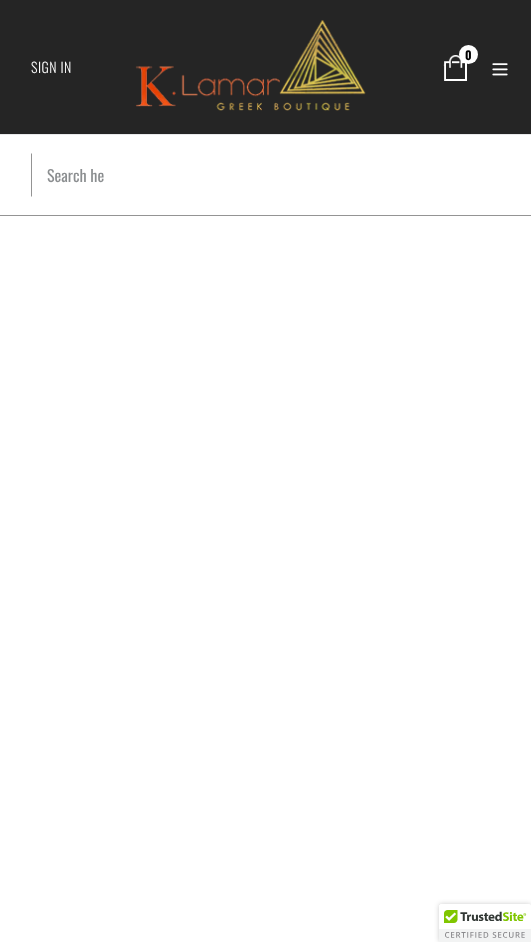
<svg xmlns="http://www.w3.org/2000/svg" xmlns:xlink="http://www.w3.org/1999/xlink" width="531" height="942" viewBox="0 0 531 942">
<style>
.cls-1{font:bold 12px Oswald;fill:#000000}
.cls-2{font:300 14px Oswald;letter-spacing:0.5px;fill:#ffffff}
.cls-3{font:16px Oswald;fill:#8b8e90}
</style>
<rect width="100%" height="100%" fill="#ffffff"/>
<rect fill="#949494" x="0" y="215" width="531" height="1"/>
<rect fill="#252525" x="0" y="0" width="531" height="134"/>
<rect fill="#e8e9eb" x="0" y="134" width="531" height="1"/>
<image xlink:href="image0.png" x="135" y="20" width="231" height="91"/>
<image xlink:href="image1.png" x="443" y="55" width="24" height="26"/>
<circle fill="#ffffff" cx="468.5" cy="54.5" r="9.5"/>
<image xlink:href="image2.png" x="492" y="63" width="16" height="13"/>
<path fill="#949494" d="M31 197V153L32 154V196Z"/>
<rect fill="#000000" fill-opacity="0.2" filter="blur(2.5px)" x="439" y="904" width="92" height="38" rx="2"/>
<path fill="#ffffff" d="M441 904H531V942H439V906C439 905 440 904 441 904Z"/>
<image xlink:href="image3.png" x="439" y="904" width="92" height="38"/>
<text class="cls-1" x="465" y="60">0</text>
<text class="cls-2" x="31" y="73">SIGN IN</text>
<text class="cls-3" x="47" y="182">Search he</text>
</svg>
